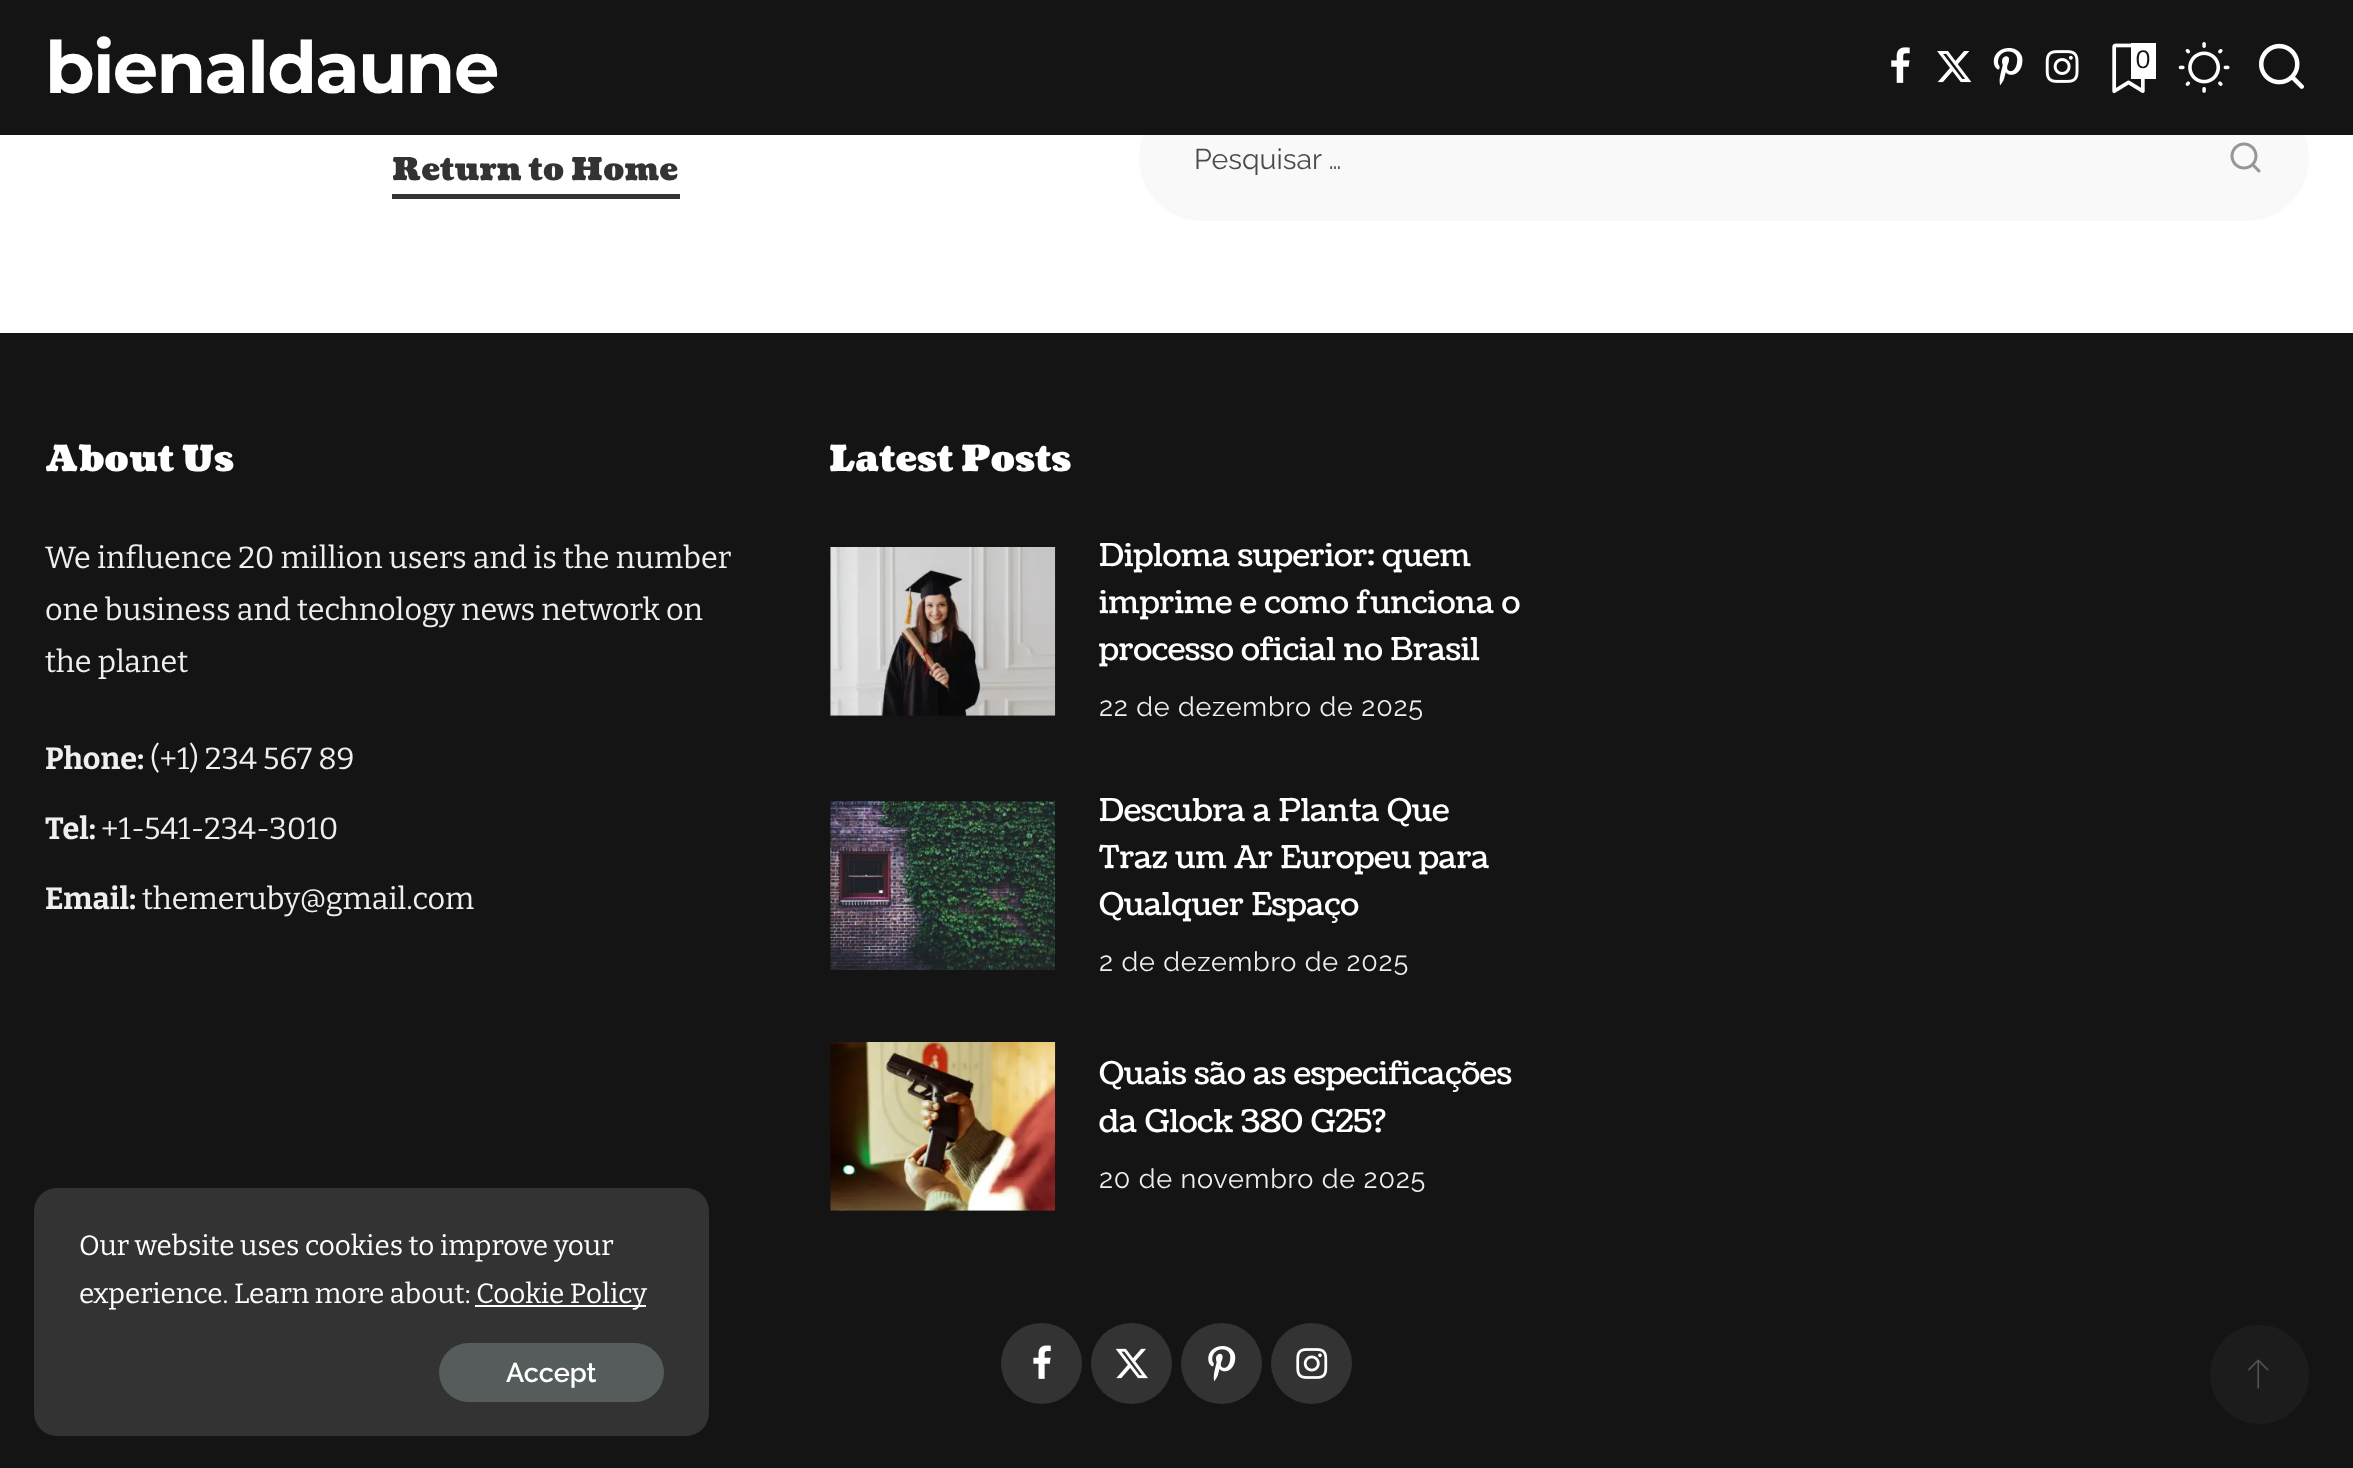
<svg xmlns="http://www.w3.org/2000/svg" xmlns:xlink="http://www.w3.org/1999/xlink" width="2353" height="1468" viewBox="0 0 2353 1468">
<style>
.cls-1{font:bold 72px Montserrat;letter-spacing:-1.75px;fill:#ffffff}
.cls-2{font:25px Bitter;fill:#141414}
.cls-3{font:900 31.5px Coustard;fill:#333333}
.cls-4{font:28.5px Raleway;fill:#4b4b4b}
.cls-5{font:900 36px Coustard;fill:#ffffff}
.cls-6{font:30.6px Bitter;fill:#efefef}
.cls-7{font:bold 30.6px Bitter;fill:#efefef}
.cls-8{font:31.5px Coustard;fill:#ffffff}
.cls-9{font:27px Raleway;letter-spacing:0.75px;fill:#efefef}
.cls-10{font:27.9px Bitter;fill:#ffffff}
.cls-11{font:600 27px Raleway;fill:#ffffff}
</style>
<rect width="100%" height="100%" fill="#ffffff"/>
<rect fill="#f9f9f9" x="1139" y="95" width="1170" height="126" rx="63"/>
<rect fill="#141414" x="0" y="0" width="2353" height="135"/>
<image xlink:href="image0.png" x="1891" y="47" width="19" height="36"/>
<image xlink:href="image1.png" x="1937" y="51" width="35" height="32"/>
<image xlink:href="image2.png" x="1993" y="47" width="30" height="39"/>
<image xlink:href="image3.png" x="2045" y="50" width="34" height="33"/>
<image xlink:href="image4.png" x="2112" y="43" width="33" height="51"/>
<rect fill="#ffffff" x="2131" y="43" width="25" height="36"/>
<image xlink:href="image5.png" x="2178" y="42" width="52" height="51"/>
<image xlink:href="image6.png" x="2259" y="43" width="45" height="46"/>
<rect fill="#333333" x="392" y="194" width="288" height="5"/>
<image xlink:href="image7.png" x="2230" y="142" width="31" height="31"/>
<rect fill="#141414" x="0" y="333" width="2353" height="1135"/>
<image xlink:href="image8.png" x="830" y="547" width="226" height="169"/>
<image xlink:href="image9.png" x="830" y="801" width="226" height="169"/>
<image xlink:href="image10.png" x="830" y="1042" width="226" height="169"/>
<circle fill="#333333" cx="1041.5" cy="1363.5" r="40.5"/>
<image xlink:href="image11.png" x="1033" y="1345" width="18" height="34"/>
<circle fill="#333333" cx="1131.5" cy="1363.5" r="40.5"/>
<image xlink:href="image12.png" x="1115" y="1348" width="33" height="31"/>
<circle fill="#333333" cx="1221.5" cy="1363.5" r="40.5"/>
<image xlink:href="image13.png" x="1208" y="1346" width="28" height="35"/>
<circle fill="#333333" cx="1311.5" cy="1363.5" r="40.5"/>
<image xlink:href="image14.png" x="1296" y="1348" width="32" height="31"/>
<rect fill="#333333" x="34" y="1188" width="675" height="248" rx="23"/>
<rect fill="#ffffff" x="475" y="1305" width="171" height="2"/>
<rect fill="#565c5c" x="439" y="1343" width="225" height="59" rx="29.5"/>
<circle fill="#1c1c1c" cx="2259.5" cy="1374.5" r="49.5"/>
<image xlink:href="image15.png" x="2248" y="1359" width="21" height="30"/>
<text class="cls-1" x="45" y="93">bienaldaune</text>
<text class="cls-2" x="2135" y="68">0</text>
<text class="cls-3" x="392" y="180">Return to Home</text>
<text class="cls-4" x="1194" y="169">Pesquisar …</text>
<text class="cls-5" x="45" y="471">About Us</text>
<text class="cls-6"><tspan x="45" y="568">We influence 20 million users and is the number</tspan><tspan x="45" y="620">one business and technology news network on</tspan><tspan x="45" y="672">the planet</tspan></text>
<text class="cls-7" x="45" y="769">Phone:</text>
<text class="cls-6" x="150" y="769">(+1) 234 567 89</text>
<text class="cls-7" x="45" y="839">Tel:</text>
<text class="cls-6" x="101" y="839">+1-541-234-3010</text>
<text class="cls-7" x="45" y="909">Email:</text>
<text class="cls-6" x="142" y="909">themeruby@gmail.com</text>
<text class="cls-5" x="829" y="471">Latest Posts</text>
<text class="cls-8"><tspan x="1099" y="566">Diploma superior: quem</tspan><tspan x="1099" y="613">imprime e como funciona o</tspan><tspan x="1099" y="660">processo oficial no Brasil</tspan></text>
<text class="cls-9" x="1099" y="716">22 de dezembro de 2025</text>
<text class="cls-8"><tspan x="1099" y="821">Descubra a Planta Que</tspan><tspan x="1099" y="868">Traz um Ar Europeu para</tspan><tspan x="1099" y="915">Qualquer Espaço</tspan></text>
<text class="cls-9" x="1099" y="971">2 de dezembro de 2025</text>
<text class="cls-8"><tspan x="1099" y="1084">Quais são as especificações</tspan><tspan x="1099" y="1132">da Glock 380 G25?</tspan></text>
<text class="cls-9" x="1099" y="1188">20 de novembro de 2025</text>
<text class="cls-10"><tspan x="79" y="1255">Our website uses cookies to improve your</tspan><tspan x="79" y="1303">experience. Learn more about:</tspan></text>
<text class="cls-10" x="476" y="1303">Cookie Policy</text>
<text class="cls-11" x="506" y="1382">Accept</text>
</svg>
